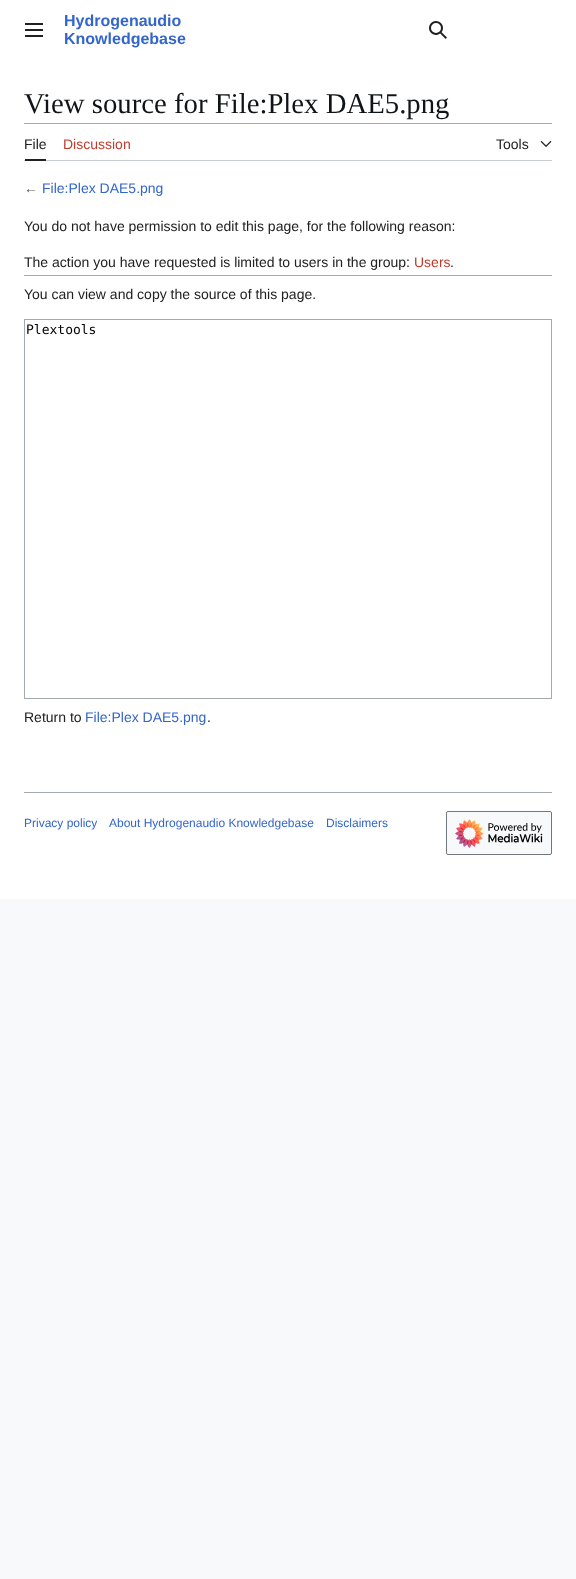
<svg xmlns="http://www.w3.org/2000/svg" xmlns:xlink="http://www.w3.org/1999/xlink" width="576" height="1579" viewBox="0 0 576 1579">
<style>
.cls-1{font:bold 16px Liberation Sans;fill:#3366cc}
.cls-2{font:28.75px Liberation Serif;fill:#101418}
.cls-3{font:14px Liberation Sans;fill:#202122}
.cls-4{font:14px Liberation Sans;fill:#bf3c2c}
.cls-5{font:14px Liberation Sans;fill:#54595d}
.cls-6{font:14px Liberation Sans;fill:#3366cc}
.cls-7{font:13px DejaVu Sans Mono;fill:#000000}
.cls-8{font:12px Liberation Sans;fill:#3366cc}
</style>
<rect width="100%" height="100%" fill="#f8f9fa"/>
<rect fill="#ffffff" x="0" y="0" width="576" height="899"/>
<image xlink:href="image0.png" x="25" y="23" width="18" height="14"/>
<image xlink:href="image1.png" x="429" y="21" width="18" height="18"/>
<rect fill="#a2a9b1" x="24" y="123" width="528" height="1"/>
<rect fill="#c8ccd1" x="24" y="160" width="528" height="1"/>
<rect fill="#202122" x="25" y="159" width="21" height="2"/>
<image xlink:href="image2.png" x="540" y="141" width="12" height="6"/>
<rect fill="#a2a9b1" x="24" y="275" width="528" height="1"/>
<rect fill="none" stroke="#a2a9b1" x="24.5" y="319.5" width="527" height="379"/>
<rect fill="#a2a9b1" x="24" y="792" width="528" height="1"/>
<rect fill="#f8f9fa" stroke="#72777d" x="446.5" y="811.5" width="105" height="43" rx="1.5"/>
<image xlink:href="image3.png" x="455" y="819" width="88" height="29"/>
<text class="cls-1"><tspan x="64" y="26">Hydrogenaudio</tspan><tspan x="64" y="44">Knowledgebase</tspan></text>
<text class="cls-2" x="24" y="113">View source for File:Plex DAE5.png</text>
<text class="cls-3" x="24" y="149">File</text>
<text class="cls-4" x="63" y="149">Discussion</text>
<text class="cls-3" x="496" y="149">Tools</text>
<text class="cls-5" x="24" y="193">←</text>
<text class="cls-6" x="42" y="193">File:Plex DAE5.png</text>
<text class="cls-3" x="24" y="231">You do not have permission to edit this page, for the following reason:</text>
<text class="cls-3" x="24" y="267">The action you have requested is limited to users in the group:</text>
<text class="cls-4" x="414" y="267">Users</text>
<text class="cls-3" x="450" y="267">.</text>
<text class="cls-3" x="24" y="299">You can view and copy the source of this page.</text>
<text class="cls-7" x="26" y="334">Plextools</text>
<text class="cls-3" x="24" y="722">Return to</text>
<text class="cls-6" x="85" y="722">File:Plex DAE5.png</text>
<text class="cls-3" x="207" y="722">.</text>
<text class="cls-8" x="24" y="827">Privacy policy</text>
<text class="cls-8" x="109" y="827">About Hydrogenaudio Knowledgebase</text>
<text class="cls-8" x="326" y="827">Disclaimers</text>
</svg>
